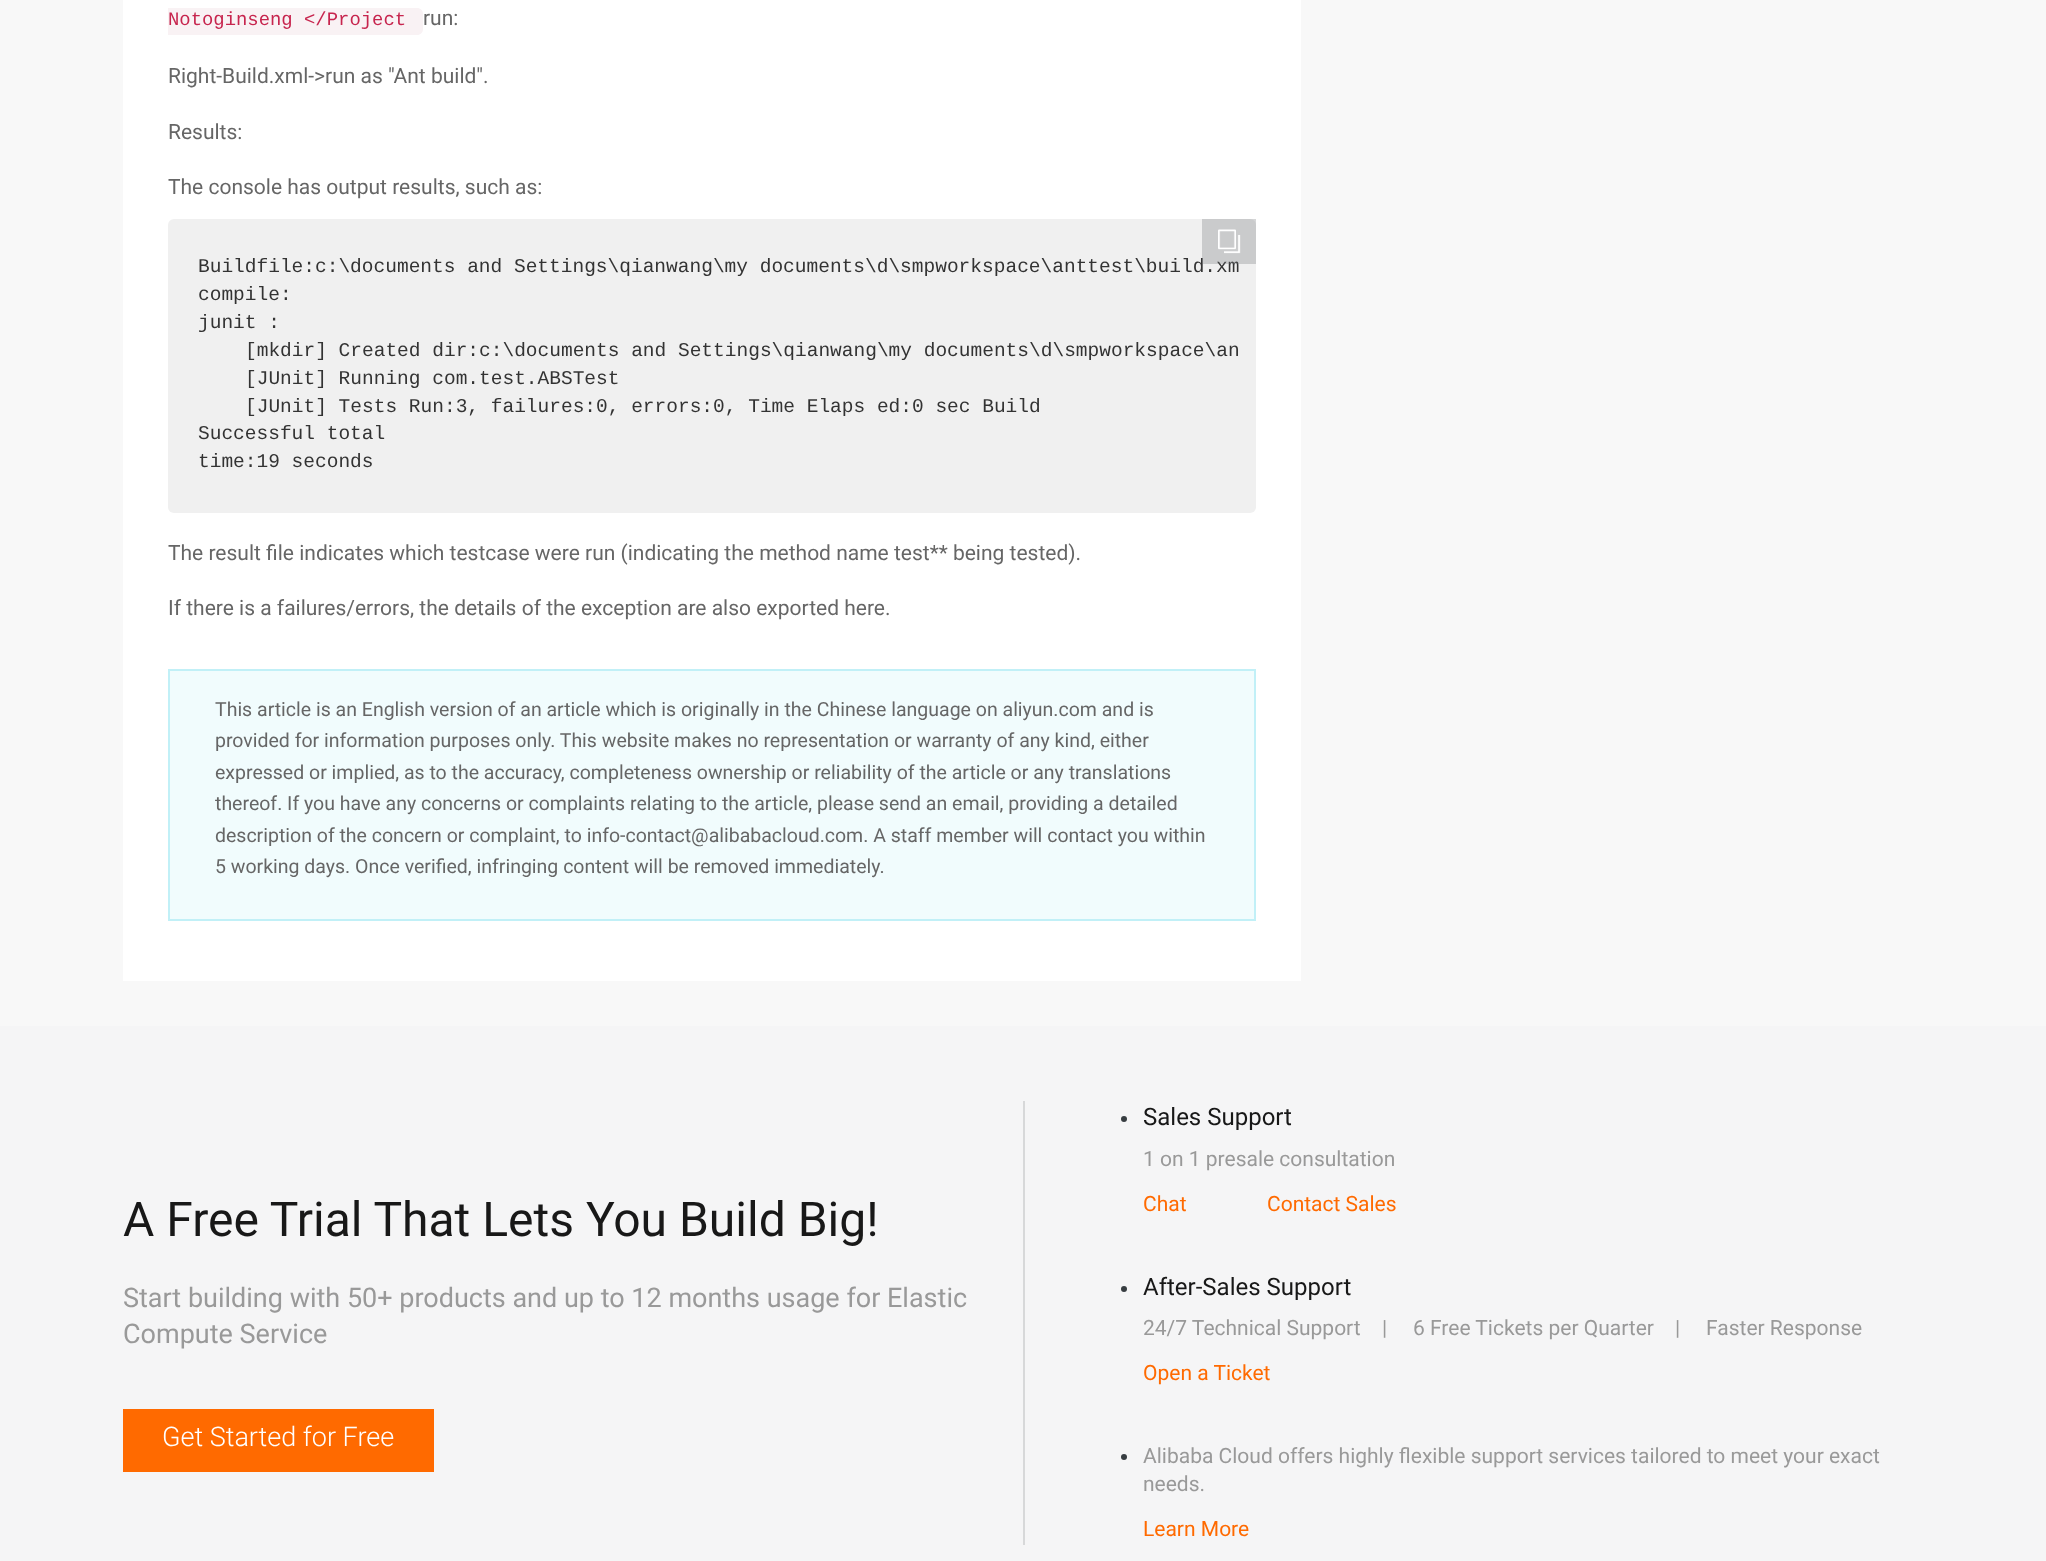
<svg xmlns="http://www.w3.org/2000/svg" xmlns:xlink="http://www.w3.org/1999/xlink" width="2046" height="1561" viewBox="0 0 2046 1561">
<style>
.cls-1{font:18.9px Liberation Mono;fill:#c7254e}
.cls-2{font:21px Roboto;fill:#666666}
.cls-3{font:19.5px Liberation Mono;fill:#333333}
.cls-4{font:19.5px Roboto;fill:#666666}
.cls-5{font:48px Roboto;fill:#181818}
.cls-6{font:27px Roboto;fill:#999999}
.cls-7{font:300 27px Roboto;fill:#ffffff}
.cls-8{font:24px Roboto;fill:#181818}
.cls-9{font:21px Roboto;fill:#999999}
.cls-10{font:21px Roboto;fill:#ff6a00}
</style>
<rect width="100%" height="100%" fill="#f8f8f8"/>
<rect fill="#ffffff" x="123" y="0" width="1178" height="981"/>
<path fill="#f9f2f4" d="M168 8H417C420.5 8 423 10.5 423 14V29C423 32.5 420.5 35 417 35H168Z"/>
<rect fill="#f0f0f0" x="168" y="219" width="1088" height="294" rx="6"/>
<rect fill="#f1fcfd" stroke="#c1f0f7" stroke-width="2" x="169" y="670" width="1086" height="250"/>
<rect fill="#f5f5f6" x="0" y="1026" width="2046" height="535"/>
<rect fill="#ff6a00" x="123" y="1409" width="311" height="63"/>
<rect fill="#d7d8d9" x="1023" y="1101" width="2" height="444"/>
<circle fill="#373d41" cx="1124" cy="1119" r="3"/>
<circle fill="#373d41" cx="1124" cy="1289" r="3"/>
<circle fill="#373d41" cx="1124" cy="1457" r="3"/>
<text class="cls-1" x="168" y="25">Notoginseng &lt;/Project</text>
<text class="cls-2" x="423" y="25">run:</text>
<text class="cls-2" x="168" y="83">Right-Build.xml-&gt;run as "Ant build".</text>
<text class="cls-2" x="168" y="139">Results:</text>
<text class="cls-2" x="168" y="194">The console has output results, such as:</text>
<text class="cls-3" x="198" y="272">Buildfile:c:\documents and Settings\qianwang\my documents\d\smpworkspace\anttest\build.xm</text>
<rect fill="#73777a" fill-opacity="0.3" x="1202" y="219" width="54" height="45"/>
<image xlink:href="image0.png" x="1218" y="229" width="23" height="25"/>
<text class="cls-3"><tspan x="198" y="300">compile:</tspan><tspan x="198" y="328">junit :</tspan></text>
<text class="cls-3"><tspan x="245" y="356">[mkdir] Created dir:c:\documents and Settings\qianwang\my documents\d\smpworkspace\an</tspan><tspan x="245" y="384">[JUnit] Running com.test.ABSTest</tspan><tspan x="245" y="412">[JUnit] Tests Run:3, failures:0, errors:0, Time Elaps ed:0 sec Build</tspan></text>
<text class="cls-3"><tspan x="198" y="439">Successful total</tspan><tspan x="198" y="467">time:19 seconds</tspan></text>
<text class="cls-2" x="168" y="560">The result file indicates which testcase were run (indicating the method name test** being tested).</text>
<text class="cls-2" x="168" y="615">If there is a failures/errors, the details of the exception are also exported here.</text>
<text class="cls-4"><tspan x="215" y="716">This article is an English version of an article which is originally in the Chinese language on aliyun.com and is</tspan><tspan x="215" y="747">provided for information purposes only. This website makes no representation or warranty of any kind, either</tspan><tspan x="215" y="779">expressed or implied, as to the accuracy, completeness ownership or reliability of the article or any translations</tspan><tspan x="215" y="810">thereof. If you have any concerns or complaints relating to the article, please send an email, providing a detailed</tspan><tspan x="215" y="842">description of the concern or complaint, to info-contact@alibabacloud.com. A staff member will contact you within</tspan><tspan x="215" y="873">5 working days. Once verified, infringing content will be removed immediately.</tspan></text>
<text class="cls-5" x="123" y="1236">A Free Trial That Lets You Build Big!</text>
<text class="cls-6"><tspan x="123" y="1307">Start building with 50+ products and up to 12 months usage for Elastic</tspan><tspan x="123" y="1343">Compute Service</tspan></text>
<text class="cls-7" x="162" y="1446">Get Started for Free</text>
<text class="cls-8" x="1143" y="1125">Sales Support</text>
<text class="cls-9" x="1143" y="1166">1 on 1 presale consultation</text>
<text class="cls-10" x="1143" y="1211">Chat</text>
<text class="cls-10" x="1267" y="1211">Contact Sales</text>
<text class="cls-8" x="1143" y="1295">After-Sales Support</text>
<text class="cls-9" x="1143" y="1335">24/7 Technical Support</text>
<text class="cls-9" x="1382" y="1335">|</text>
<text class="cls-9" x="1413" y="1335">6 Free Tickets per Quarter</text>
<text class="cls-9" x="1675" y="1335">|</text>
<text class="cls-9" x="1706" y="1335">Faster Response</text>
<text class="cls-10" x="1143" y="1380">Open a Ticket</text>
<text class="cls-9"><tspan x="1143" y="1463">Alibaba Cloud offers highly flexible support services tailored to meet your exact</tspan><tspan x="1143" y="1491">needs.</tspan></text>
<text class="cls-10" x="1143" y="1536">Learn More</text>
</svg>
